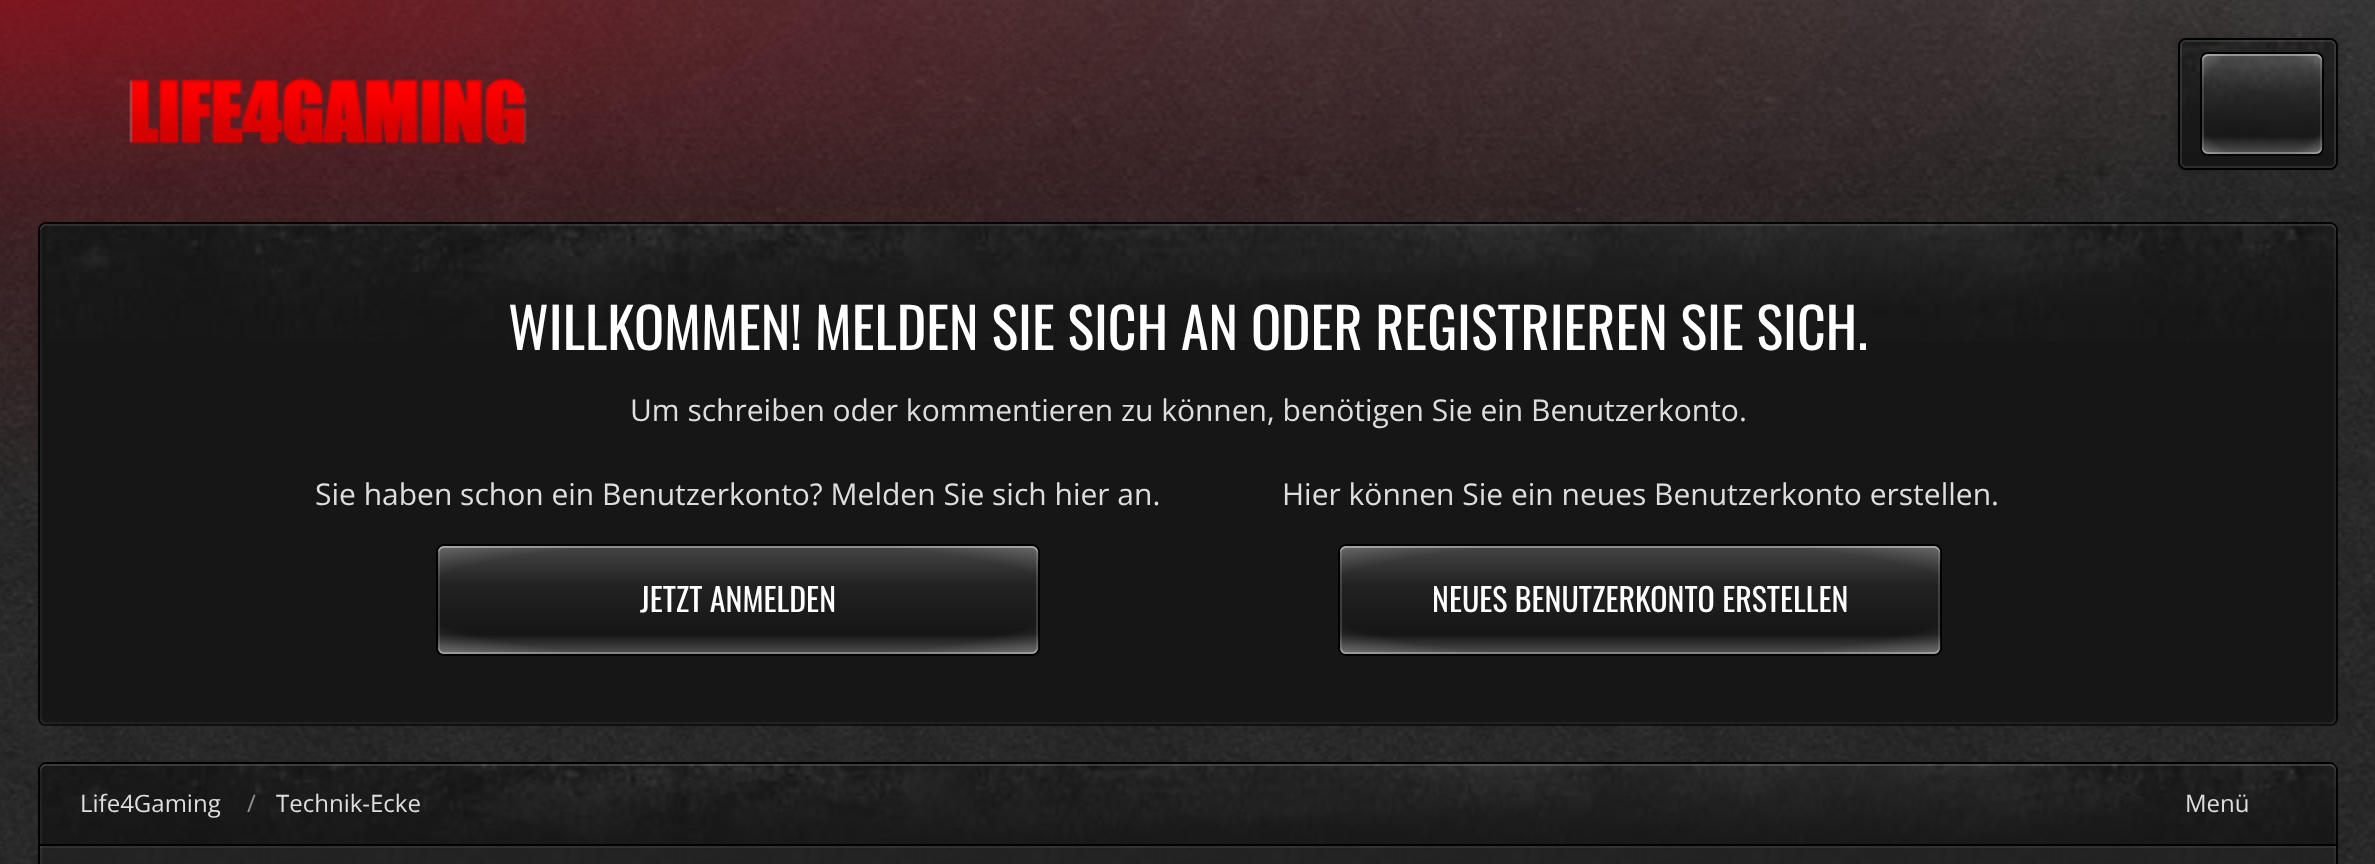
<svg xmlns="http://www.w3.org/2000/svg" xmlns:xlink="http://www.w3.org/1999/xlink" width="2375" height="864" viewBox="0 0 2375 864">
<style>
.cls-1{font:56px Oswald;fill:#ffffff}
.cls-2{font:30px Open Sans;fill:#dedede}
.cls-3{font:32px Oswald;fill:#ffffff}
.cls-4{font:24px Open Sans;fill:#dedede}
.cls-5{font:24px Open Sans;fill:#939393}
</style>
<defs>
<linearGradient id="g1" gradientUnits="userSpaceOnUse" x1="2262" y1="54" x2="2262" y2="154"><stop offset="0" stop-color="#ffffff" stop-opacity="0.2"/><stop offset="0.37" stop-color="#ffffff" stop-opacity="0.05"/><stop offset="0.82" stop-color="#ffffff" stop-opacity="0"/><stop offset="1" stop-color="#ffffff" stop-opacity="0.25"/></linearGradient>
<radialGradient id="g2" gradientUnits="userSpaceOnUse" cx="0" cy="0" r="1" gradientTransform="matrix(85 0 0 71 2262 104)"><stop offset="0" stop-color="#000000" stop-opacity="0"/><stop offset="0.77" stop-color="#ffffff" stop-opacity="0"/><stop offset="1" stop-color="#ffffff" stop-opacity="0.2"/></radialGradient>
<linearGradient id="g3" gradientUnits="userSpaceOnUse" x1="738" y1="546" x2="738" y2="654"><stop offset="0" stop-color="#ffffff" stop-opacity="0.2"/><stop offset="0.37" stop-color="#ffffff" stop-opacity="0.05"/><stop offset="0.82" stop-color="#ffffff" stop-opacity="0"/><stop offset="1" stop-color="#ffffff" stop-opacity="0.25"/></linearGradient>
<radialGradient id="g4" gradientUnits="userSpaceOnUse" cx="0" cy="0" r="1" gradientTransform="matrix(424 0 0 76 738 600)"><stop offset="0" stop-color="#000000" stop-opacity="0"/><stop offset="0.77" stop-color="#ffffff" stop-opacity="0"/><stop offset="1" stop-color="#ffffff" stop-opacity="0.2"/></radialGradient>
<linearGradient id="g5" gradientUnits="userSpaceOnUse" x1="1640" y1="546" x2="1640" y2="654"><stop offset="0" stop-color="#ffffff" stop-opacity="0.2"/><stop offset="0.37" stop-color="#ffffff" stop-opacity="0.05"/><stop offset="0.82" stop-color="#ffffff" stop-opacity="0"/><stop offset="1" stop-color="#ffffff" stop-opacity="0.25"/></linearGradient>
<radialGradient id="g6" gradientUnits="userSpaceOnUse" cx="0" cy="0" r="1" gradientTransform="matrix(424 0 0 76 1640 600)"><stop offset="0" stop-color="#000000" stop-opacity="0"/><stop offset="0.77" stop-color="#ffffff" stop-opacity="0"/><stop offset="1" stop-color="#ffffff" stop-opacity="0.2"/></radialGradient>
</defs>
<rect width="100%" height="100%" fill="#ffffff"/>
<image xlink:href="image0.png" x="0" y="0" width="2375" height="864"/>
<image xlink:href="image1.png" x="129" y="77" width="398" height="69"/>
<rect fill="#000000" fill-opacity="0.25" filter="blur(5px)" x="2180" y="40" width="156" height="128" rx="6"/>
<rect fill="none" stroke="#000000" stroke-width="2" x="2179" y="39" width="158" height="130" rx="7"/>
<rect fill="#161616" x="2180" y="40" width="156" height="128" rx="6"/>
<image xlink:href="image2.png" x="2180" y="40" width="156" height="112"/>
<rect fill="none" stroke="#ffffff" stroke-opacity="0.1" stroke-width="2" x="2181" y="41" width="154" height="126" rx="5"/>
<rect fill="none" stroke="#000000" stroke-width="2" x="2201" y="53" width="122" height="102" rx="7"/>
<rect fill="url(#g1)" x="2202" y="54" width="120" height="100" rx="6"/>
<rect fill="url(#g2)" x="2202" y="54" width="120" height="100" rx="6"/>
<path fill="#ffffff" fill-opacity="0.15" d="M2314 154C2326 154 2322 142 2322 133V75C2322 66 2326 54 2314 54C2317 54 2320 57 2320 60V148C2320 151 2317 154 2314 154Z"/>
<path fill="#ffffff" fill-opacity="0.15" d="M2208 54C2205 54 2202 57 2202 60V148C2202 151 2205 154 2208 154H2210C2207 154 2204 151 2204 148V60C2204 57 2207 54 2210 54Z"/>
<path fill="#ffffff" fill-opacity="0.3" d="M2202 146V148C2202 151 2205 154 2208 154H2316C2319 154 2322 151 2322 148V146C2322 149 2319 152 2316 152H2208C2205 152 2202 149 2202 146Z"/>
<path fill="#ffffff" fill-opacity="0.4" d="M2208 56H2316C2319 56 2322 59 2322 62V60C2322 57 2319 54 2316 54H2208C2205 54 2202 57 2202 60V62C2202 59 2205 56 2208 56Z"/>
<rect fill="none" stroke="#000000" stroke-opacity="0.9" stroke-width="2" x="39" y="223" width="2298" height="502" rx="7"/>
<rect fill="#161616" x="40" y="224" width="2296" height="500" rx="6"/>
<image xlink:href="image3.png" x="46" y="224" width="2290" height="117"/>
<path fill="#ffffff" fill-opacity="0.05" d="M40 718V720C40 723 43 726 46 726H2330C2333 726 2336 723 2336 720V718C2336 721 2333 724 2330 724H46C43 724 40 721 40 718Z"/>
<path fill="#ffffff" fill-opacity="0.05" d="M2328 724C2332 724 2336 723 2336 718V230C2336 225 2332 224 2328 224C2331 224 2334 227 2334 230V718C2334 721 2331 724 2328 724Z"/>
<path fill="#ffffff" fill-opacity="0.05" d="M46 224C43 224 40 227 40 230V718C40 723 44 724 48 724C45 724 42 721 42 718V230C42 227 45 224 48 224Z"/>
<path fill="#ffffff" fill-opacity="0.05" d="M40 716V718C40 721 43 724 46 724H2330C2333 724 2336 721 2336 718V716C2336 719 2333 722 2330 722H46C43 722 40 719 40 716Z"/>
<path fill="#ffffff" fill-opacity="0.1" d="M46 226H2330C2333 226 2336 229 2336 232V230C2336 227 2333 224 2330 224H46C43 224 40 227 40 230V232C40 229 43 226 46 226Z"/>
<rect fill="none" stroke="#000000" stroke-width="2" x="437" y="545" width="602" height="110" rx="7"/>
<rect fill="url(#g3)" x="438" y="546" width="600" height="108" rx="6"/>
<rect fill="url(#g4)" x="438" y="546" width="600" height="108" rx="6"/>
<path fill="#ffffff" fill-opacity="0.15" d="M1030 654C1042 654 1038 641 1038 632V568C1038 559 1042 546 1030 546C1033 546 1036 549 1036 552V648C1036 651 1033 654 1030 654Z"/>
<path fill="#ffffff" fill-opacity="0.15" d="M444 546C441 546 438 549 438 552V648C438 651 441 654 444 654H446C443 654 440 651 440 648V552C440 549 443 546 446 546Z"/>
<path fill="#ffffff" fill-opacity="0.3" d="M438 646V648C438 651 441 654 444 654H1032C1035 654 1038 651 1038 648V646C1038 649 1035 652 1032 652H444C441 652 438 649 438 646Z"/>
<path fill="#ffffff" fill-opacity="0.4" d="M444 548H1032C1035 548 1038 551 1038 554V552C1038 549 1035 546 1032 546H444C441 546 438 549 438 552V554C438 551 441 548 444 548Z"/>
<rect fill="none" stroke="#000000" stroke-width="2" x="1339" y="545" width="602" height="110" rx="7"/>
<rect fill="url(#g5)" x="1340" y="546" width="600" height="108" rx="6"/>
<rect fill="url(#g6)" x="1340" y="546" width="600" height="108" rx="6"/>
<path fill="#ffffff" fill-opacity="0.15" d="M1932 654C1944 654 1940 641 1940 632V568C1940 559 1944 546 1932 546C1935 546 1938 549 1938 552V648C1938 651 1935 654 1932 654Z"/>
<path fill="#ffffff" fill-opacity="0.15" d="M1346 546C1343 546 1340 549 1340 552V648C1340 651 1343 654 1346 654H1348C1345 654 1342 651 1342 648V552C1342 549 1345 546 1348 546Z"/>
<path fill="#ffffff" fill-opacity="0.3" d="M1340 646V648C1340 651 1343 654 1346 654H1934C1937 654 1940 651 1940 648V646C1940 649 1937 652 1934 652H1346C1343 652 1340 649 1340 646Z"/>
<path fill="#ffffff" fill-opacity="0.4" d="M1346 548H1934C1937 548 1940 551 1940 554V552C1940 549 1937 546 1934 546H1346C1343 546 1340 549 1340 552V554C1340 551 1343 548 1346 548Z"/>
<path fill="#000000" d="M2336 844H2338V770C2338 767 2335 764 2332 764H2330C2333 764 2336 767 2336 770Z"/>
<path fill="#000000" d="M44 764C41 764 38 767 38 770V844H40V770C40 767 43 764 46 764Z"/>
<path fill="#000000" d="M46 762C41 762 40 766 40 770C40 767 43 764 46 764H2330C2333 764 2336 767 2336 770C2336 766 2335 762 2330 762Z"/>
<image xlink:href="image4.png" x="40" y="764" width="2296" height="80"/>
<path fill="#ffffff" fill-opacity="0.05" d="M2334 844H2336V770C2336 767 2333 764 2330 764H2328C2331 764 2334 767 2334 770Z"/>
<path fill="#242424" d="M46 764C43 764 40 767 40 770V844H42V770C42 767 45 764 48 764Z"/>
<path fill="#ffffff" fill-opacity="0.15" d="M46 766H2330C2333 766 2336 769 2336 772V770C2336 767 2333 764 2330 764H46C43 764 40 767 40 770V772C40 769 43 766 46 766Z"/>
<rect fill="#000000" x="2336" y="844" width="2" height="20"/>
<rect fill="#000000" x="38" y="844" width="2" height="20"/>
<image xlink:href="image5.png" x="42" y="846" width="2292" height="18"/>
<rect fill="#2e2e2e" x="2334" y="846" width="2" height="18"/>
<rect fill="#2e2e2e" x="40" y="846" width="2" height="18"/>
<rect fill="#ffffff" fill-opacity="0.07" x="40" y="846" width="2296" height="2"/>
<rect fill="#000000" x="40" y="844" width="2296" height="2"/>
<text class="cls-1" x="508" y="350">WILLKOMMEN! MELDEN SIE SICH AN ODER REGISTRIEREN SIE SICH.</text>
<text class="cls-2" x="630" y="421">Um schreiben oder kommentieren zu können, benötigen Sie ein Benutzerkonto.</text>
<text class="cls-2" x="315" y="505">Sie haben schon ein Benutzerkonto? Melden Sie sich hier an.</text>
<text class="cls-3" x="640" y="612">JETZT ANMELDEN</text>
<text class="cls-2" x="1282" y="505">Hier können Sie ein neues Benutzerkonto erstellen.</text>
<text class="cls-3" x="1432" y="612">NEUES BENUTZERKONTO ERSTELLEN</text>
<text class="cls-4" x="80" y="812">Life4Gaming</text>
<text class="cls-5" x="247" y="812">/</text>
<text class="cls-4" x="276" y="812">Technik-Ecke</text>
<text class="cls-4" x="2185" y="812">Menü</text>
</svg>
